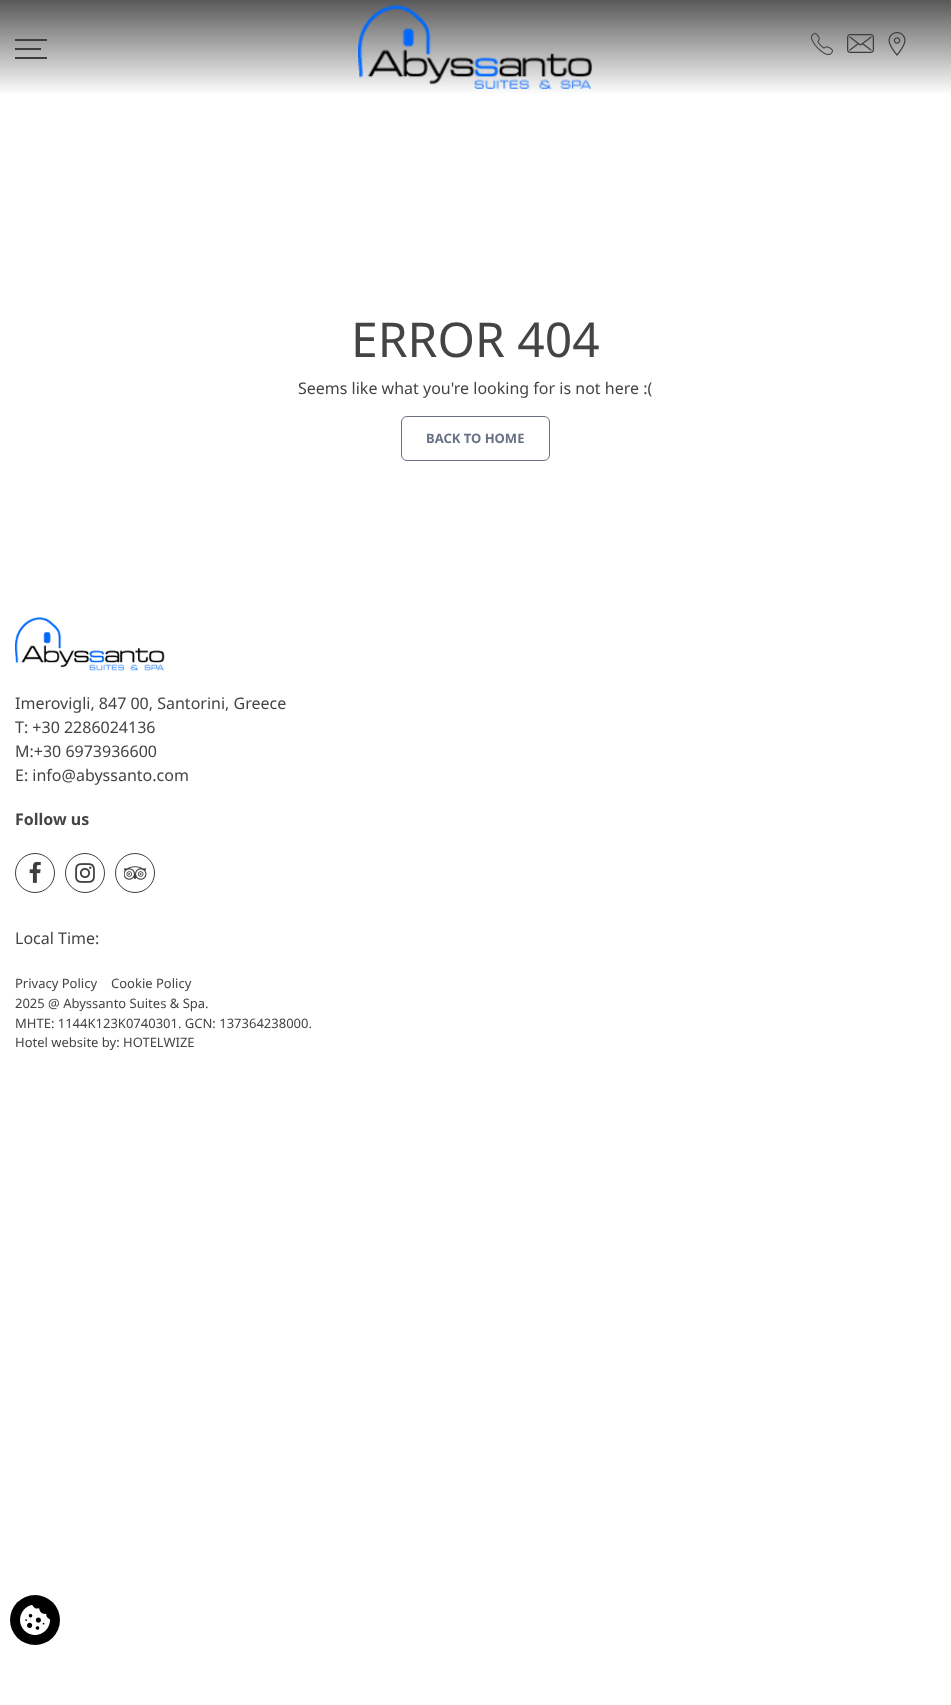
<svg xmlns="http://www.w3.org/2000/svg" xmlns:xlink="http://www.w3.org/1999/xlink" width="951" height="1705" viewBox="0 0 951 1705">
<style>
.cls-1{font:48px Noto Sans;fill:#444444}
.cls-2{font:16px Noto Sans;fill:#444444}
.cls-3{font:bold 13px Noto Sans;fill:#697184}
.cls-4{font:bold 16px Noto Sans;fill:#444444}
.cls-5{font:13px Noto Sans;fill:#444444}
</style>
<defs>
<linearGradient id="g1" gradientUnits="userSpaceOnUse" x1="476" y1="0" x2="476" y2="95"><stop offset="0" stop-color="#595959"/><stop offset="1" stop-color="#ffffff"/></linearGradient>
</defs>
<rect width="100%" height="100%" fill="#ffffff"/>
<rect fill="url(#g1)" x="0" y="0" width="951" height="94"/>
<rect fill="#3e3e3e" x="15" y="48" width="26" height="2"/>
<rect fill="#3e3e3e" x="15" y="39" width="32" height="2"/>
<rect fill="#3e3e3e" x="15" y="57" width="32" height="2"/>
<image xlink:href="image0.png" x="358" y="5" width="235" height="85"/>
<image xlink:href="image1.png" x="811" y="33" width="22" height="22"/>
<image xlink:href="image2.png" x="847" y="34" width="27" height="19"/>
<image xlink:href="image3.png" x="888" y="32" width="18" height="24"/>
<rect fill="none" stroke="#697184" x="401.5" y="416.5" width="148" height="44" rx="5.5"/>
<image xlink:href="image4.png" x="15" y="617" width="150" height="54"/>
<circle fill="none" stroke="#3e3e3e" cx="35" cy="873" r="19.5"/>
<image xlink:href="image5.png" x="29" y="862" width="12" height="21"/>
<circle fill="none" stroke="#3e3e3e" cx="85" cy="873" r="19.5"/>
<image xlink:href="image6.png" x="75" y="863" width="20" height="20"/>
<circle fill="none" stroke="#3e3e3e" cx="135" cy="873" r="19.5"/>
<image xlink:href="image7.png" x="124" y="866" width="23" height="14"/>
<circle fill="#000000" cx="35" cy="1620" r="25"/>
<image xlink:href="image8.png" x="20" y="1605" width="30" height="30"/>
<text class="cls-1" x="351" y="357">ERROR 404</text>
<text class="cls-2" x="298" y="394">Seems like what you're looking for is not here :(</text>
<text class="cls-3" x="426" y="443">BACK TO HOME</text>
<text class="cls-2"><tspan x="15" y="709">Imerovigli, 847 00, Santorini, Greece</tspan><tspan x="15" y="733">T: +30 2286024136</tspan><tspan x="15" y="757">M:+30 6973936600</tspan><tspan x="15" y="781">E: info@abyssanto.com</tspan></text>
<text class="cls-4" x="15" y="825">Follow us</text>
<text class="cls-2" x="15" y="944">Local Time:</text>
<text class="cls-5" x="15" y="988">Privacy Policy</text>
<text class="cls-5" x="111" y="988">Cookie Policy</text>
<text class="cls-5"><tspan x="15" y="1008">2025 @ Abyssanto Suites &amp; Spa.</tspan><tspan x="15" y="1028">MHTE: 1144K123K0740301. GCN: 137364238000.</tspan><tspan x="15" y="1047">Hotel website by: HOTELWIZE</tspan></text>
</svg>
